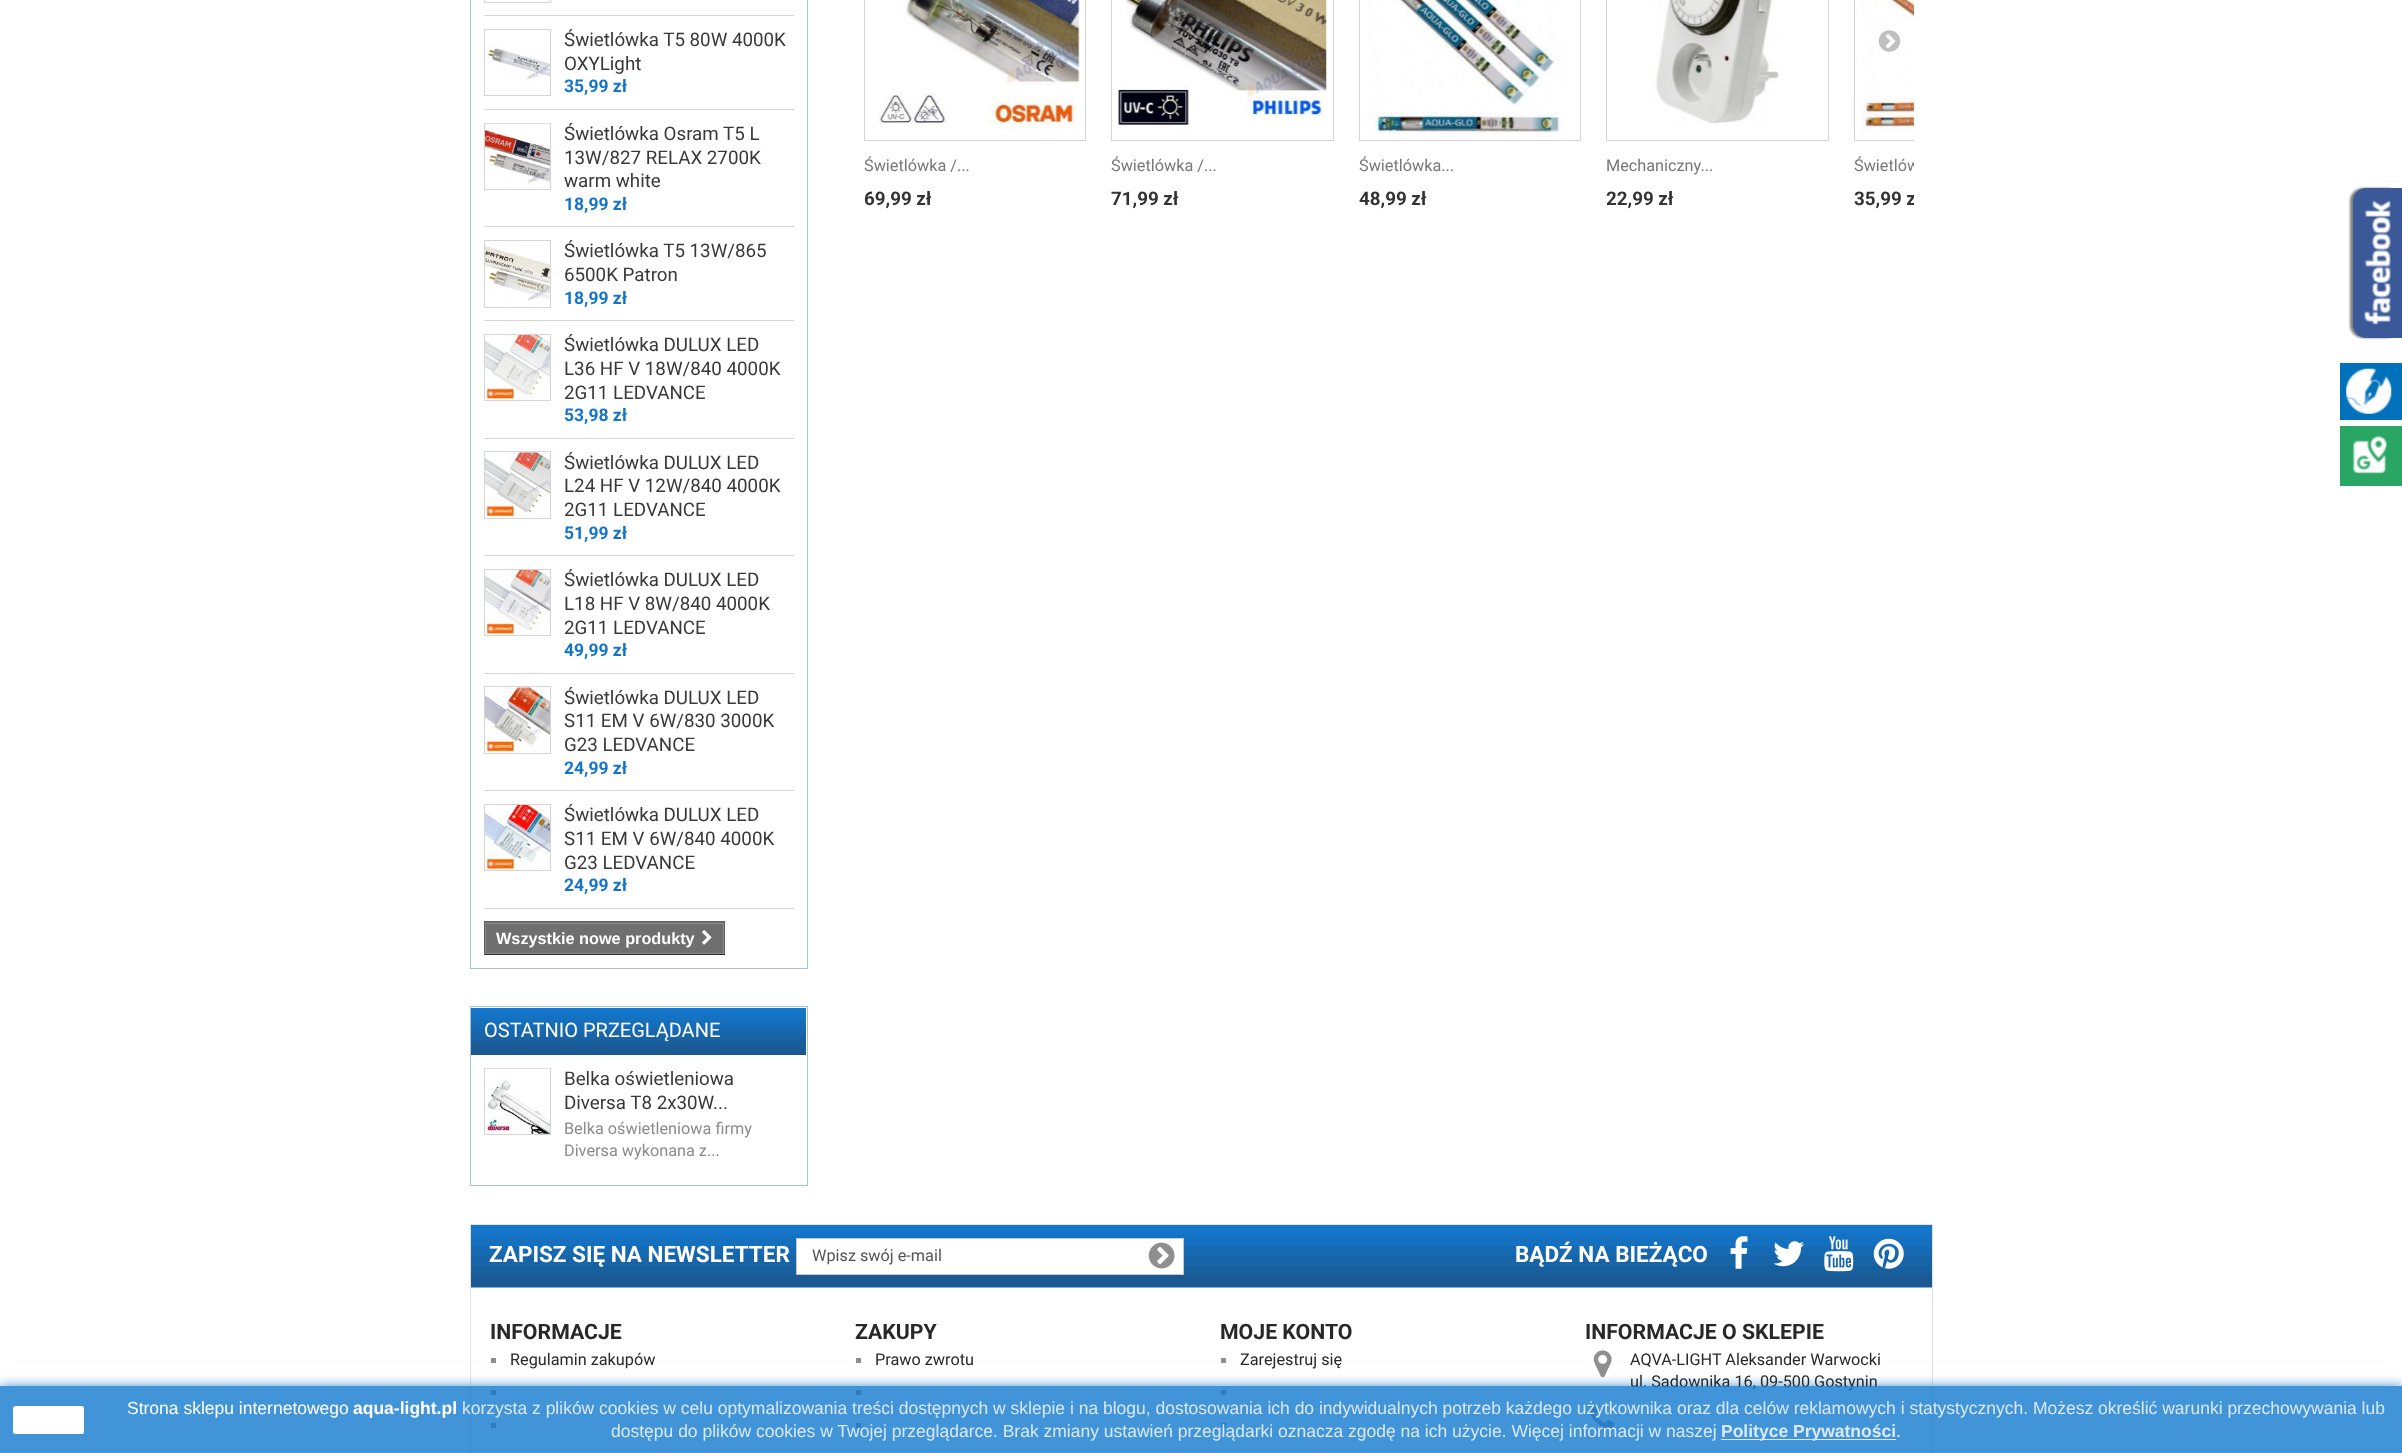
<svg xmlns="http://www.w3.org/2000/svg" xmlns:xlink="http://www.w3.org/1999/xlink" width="2402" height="1453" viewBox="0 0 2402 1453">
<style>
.cls-1{font:18.75px Roboto;fill:#3a3939}
.cls-2{font:bold 17.5px Roboto;fill:#1475c8}
.cls-3{font:bold 16.25px Liberation Sans;fill:#ffffff}
.cls-4{font:20px Roboto;fill:#ffffff}
.cls-5{font:16.25px Roboto;fill:#8b8b8b}
.cls-6{font:16.25px Roboto;fill:#777777}
.cls-7{font:bold 18.75px Roboto;fill:#333333}
.cls-8{font:bold 22.5px Roboto;fill:#ffffff}
.cls-9{font:16.25px Roboto;fill:#565452}
.cls-10{font:bold 21.25px Roboto;fill:#282828}
.cls-11{font:16.25px Roboto;fill:#282828}
.cls-12{font:17.5px Liberation Sans;fill:#ffffff}
.cls-13{font:bold 17.5px Liberation Sans;fill:#ffffff}
.cls-14{font:17.5px Liberation Sans;fill:#d9e9f7}
.cls-15{font:bold 17.5px Liberation Sans;fill:#d9e9f7}
</style>
<defs>
<linearGradient id="g1" gradientUnits="userSpaceOnUse" x1="639" y1="1008" x2="639" y2="1055"><stop offset="0" stop-color="#1379d0"/><stop offset="1" stop-color="#1b558c"/></linearGradient>
<clipPath id="clip1"><rect x="864" y="0" width="1050" height="223"/></clipPath>
<clipPath id="clip2"><path d="M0 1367H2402V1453H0ZM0 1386H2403V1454H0Z" clip-rule="evenodd"/></clipPath>
</defs>
<rect width="100%" height="100%" fill="#ffffff"/>
<rect fill="none" stroke="#a4c4d6" x="470.5" y="-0.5" width="337" height="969"/>
<rect fill="#d6d4d4" x="484" y="15" width="310" height="1"/>
<rect fill="none" stroke="#d6d4d4" x="484.5" y="-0.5" width="66" height="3"/>
<rect fill="#d6d4d4" x="484" y="109" width="310" height="1"/>
<rect fill="none" stroke="#d6d4d4" x="484.5" y="29.5" width="66" height="66"/>
<image xlink:href="image0.png" x="485" y="41" width="65" height="42"/>
<rect fill="#d6d4d4" x="484" y="226" width="310" height="1"/>
<rect fill="none" stroke="#d6d4d4" x="484.5" y="123.5" width="66" height="66"/>
<image xlink:href="image1.png" x="485" y="123" width="65" height="64"/>
<rect fill="#d6d4d4" x="484" y="320" width="310" height="1"/>
<rect fill="none" stroke="#d6d4d4" x="484.5" y="240.5" width="66" height="67"/>
<image xlink:href="image2.png" x="485" y="245" width="65" height="60"/>
<rect fill="#d6d4d4" x="484" y="438" width="310" height="1"/>
<rect fill="none" stroke="#d6d4d4" x="484.5" y="334.5" width="66" height="66"/>
<image xlink:href="image3.png" x="485" y="335" width="65" height="65"/>
<rect fill="#d6d4d4" x="484" y="555" width="310" height="1"/>
<rect fill="none" stroke="#d6d4d4" x="484.5" y="451.5" width="66" height="67"/>
<image xlink:href="image4.png" x="485" y="452" width="65" height="65"/>
<rect fill="#d6d4d4" x="484" y="673" width="310" height="1"/>
<rect fill="none" stroke="#d6d4d4" x="484.5" y="569.5" width="66" height="66"/>
<image xlink:href="image5.png" x="485" y="570" width="65" height="65"/>
<rect fill="#d6d4d4" x="484" y="790" width="310" height="1"/>
<rect fill="none" stroke="#d6d4d4" x="484.5" y="686.5" width="66" height="67"/>
<image xlink:href="image6.png" x="485" y="687" width="65" height="65"/>
<rect fill="#d6d4d4" x="484" y="908" width="310" height="1"/>
<rect fill="none" stroke="#d6d4d4" x="484.5" y="804.5" width="66" height="66"/>
<image xlink:href="image7.png" x="485" y="805" width="65" height="65"/>
<rect fill="#6f6f6f" x="485" y="922" width="239" height="31"/>
<rect fill="#666666" x="484" y="921" width="241" height="1"/>
<rect fill="#5f5f5f" x="724" y="921" width="1" height="34"/>
<rect fill="#292929" x="484" y="954" width="241" height="1"/>
<rect fill="#5f5f5f" x="484" y="921" width="1" height="34"/>
<rect fill="none" stroke="#8b8a8a" x="485.5" y="923.5" width="238" height="30"/>
<image xlink:href="image8.png" x="702" y="930" width="10" height="15"/>
<rect fill="none" stroke="#a4c4d6" x="470.5" y="1006.5" width="337" height="179"/>
<rect fill="url(#g1)" x="471" y="1008" width="335" height="47"/>
<rect fill="none" stroke="#d6d4d4" x="484.5" y="1068.5" width="66" height="66"/>
<image xlink:href="image9.png" x="485" y="1068" width="65" height="66"/>
<g clip-path="url(#clip1)">
<rect fill="none" stroke="#d6d4d4" x="1854.5" y="-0.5" width="221" height="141"/>
</g>
<image xlink:href="image15.png" x="1861" y="0" width="53" height="133"/>
<image xlink:href="image10.png" x="1878" y="30" width="23" height="22"/>
<rect fill="none" stroke="#d6d4d4" x="864.5" y="-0.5" width="221" height="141"/>
<image xlink:href="image11.png" x="878" y="0" width="202" height="130"/>
<rect fill="none" stroke="#d6d4d4" x="1111.5" y="-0.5" width="222" height="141"/>
<image xlink:href="image12.png" x="1118" y="0" width="209" height="130"/>
<rect fill="none" stroke="#d6d4d4" x="1359.5" y="-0.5" width="221" height="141"/>
<image xlink:href="image13.png" x="1367" y="0" width="198" height="134"/>
<rect fill="none" stroke="#d6d4d4" x="1606.5" y="-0.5" width="222" height="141"/>
<image xlink:href="image14.png" x="1652" y="0" width="127" height="124"/>
<rect fill="#000000" fill-opacity="0.5" filter="blur(1px)" x="2350" y="188" width="50" height="150" rx="13"/>
<path fill="#3b5998" d="M2366 188H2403V338H2366C2359 338 2353 332 2353 325V201C2353 194 2359 188 2366 188Z"/>
<image xlink:href="image16.png" x="2364" y="200" width="27" height="125"/>
<image xlink:href="image17.png" x="471" y="1225" width="1461" height="63"/>
<rect fill="none" stroke="#e2e2e2" x="470.5" y="1224.5" width="1462" height="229"/>
<rect fill="#ffffff" stroke="#c7c7c5" x="796.5" y="1238.5" width="387" height="36"/>
<image xlink:href="image18.png" x="1148" y="1242" width="27" height="27"/>
<image xlink:href="image19.png" x="1730" y="1236" width="18" height="33"/>
<image xlink:href="image20.png" x="1773" y="1241" width="31" height="26"/>
<image xlink:href="image21.png" x="1824" y="1236" width="30" height="36"/>
<image xlink:href="image22.png" x="1873" y="1238" width="31" height="31"/>
<rect fill="#908f8f" x="491" y="1358" width="5" height="5"/>
<rect fill="#908f8f" x="491" y="1390" width="5" height="5"/>
<rect fill="#908f8f" x="491" y="1423" width="5" height="5"/>
<rect fill="#908f8f" x="856" y="1358" width="5" height="5"/>
<rect fill="#908f8f" x="856" y="1390" width="5" height="5"/>
<rect fill="#908f8f" x="856" y="1423" width="5" height="5"/>
<rect fill="#908f8f" x="1221" y="1358" width="5" height="5"/>
<rect fill="#908f8f" x="1221" y="1390" width="5" height="5"/>
<rect fill="#908f8f" x="1221" y="1423" width="5" height="5"/>
<image xlink:href="image23.png" x="1593" y="1350" width="19" height="28"/>
<image xlink:href="image24.png" x="1590" y="1404" width="25" height="25"/>
<g clip-path="url(#clip2)">
<rect fill="#1379d0" fill-opacity="0.8" filter="blur(6px)" x="0" y="1386" width="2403" height="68"/>
</g>
<rect fill="#0171bb" x="2340" y="363" width="62" height="57"/>
<image xlink:href="image25.png" x="2346" y="368" width="46" height="46"/>
<rect fill="#2aa664" x="2340" y="426" width="62" height="60"/>
<image xlink:href="image26.png" x="2352" y="435" width="36" height="39"/>
<text class="cls-1"><tspan x="564" y="46">Świetlówka T5 80W 4000K</tspan><tspan x="564" y="70">OXYLight</tspan></text>
<text class="cls-2" x="564" y="92">35,99 zł</text>
<text class="cls-1"><tspan x="564" y="140">Świetlówka Osram T5 L</tspan><tspan x="564" y="164">13W/827 RELAX 2700K</tspan><tspan x="564" y="187">warm white</tspan></text>
<text class="cls-2" x="564" y="210">18,99 zł</text>
<text class="cls-1"><tspan x="564" y="257">Świetlówka T5 13W/865</tspan><tspan x="564" y="281">6500K Patron</tspan></text>
<text class="cls-2" x="564" y="304">18,99 zł</text>
<text class="cls-1"><tspan x="564" y="351">Świetlówka DULUX LED</tspan><tspan x="564" y="375">L36 HF V 18W/840 4000K</tspan><tspan x="564" y="399">2G11 LEDVANCE</tspan></text>
<text class="cls-2" x="564" y="421">53,98 zł</text>
<text class="cls-1"><tspan x="564" y="469">Świetlówka DULUX LED</tspan><tspan x="564" y="492">L24 HF V 12W/840 4000K</tspan><tspan x="564" y="516">2G11 LEDVANCE</tspan></text>
<text class="cls-2" x="564" y="539">51,99 zł</text>
<text class="cls-1"><tspan x="564" y="586">Świetlówka DULUX LED</tspan><tspan x="564" y="610">L18 HF V 8W/840 4000K</tspan><tspan x="564" y="634">2G11 LEDVANCE</tspan></text>
<text class="cls-2" x="564" y="656">49,99 zł</text>
<text class="cls-1"><tspan x="564" y="704">Świetlówka DULUX LED</tspan><tspan x="564" y="727">S11 EM V 6W/830 3000K</tspan><tspan x="564" y="751">G23 LEDVANCE</tspan></text>
<text class="cls-2" x="564" y="774">24,99 zł</text>
<text class="cls-1"><tspan x="564" y="821">Świetlówka DULUX LED</tspan><tspan x="564" y="845">S11 EM V 6W/840 4000K</tspan><tspan x="564" y="869">G23 LEDVANCE</tspan></text>
<text class="cls-2" x="564" y="891">24,99 zł</text>
<text class="cls-3" x="496" y="944">Wszystkie nowe produkty</text>
<text class="cls-4" x="484" y="1037">OSTATNIO PRZEGLĄDANE</text>
<text class="cls-1"><tspan x="564" y="1085">Belka oświetleniowa</tspan><tspan x="564" y="1109">Diversa T8 2x30W...</tspan></text>
<text class="cls-5"><tspan x="564" y="1134">Belka oświetleniowa firmy</tspan><tspan x="564" y="1156">Diversa wykonana z...</tspan></text>
<text class="cls-6" x="864" y="171">Świetlówka /...</text>
<text class="cls-7" x="864" y="205">69,99 zł</text>
<text class="cls-6" x="1111" y="171">Świetlówka /...</text>
<text class="cls-7" x="1111" y="205">71,99 zł</text>
<text class="cls-6" x="1359" y="171">Świetlówka...</text>
<text class="cls-7" x="1359" y="205">48,99 zł</text>
<text class="cls-6" x="1606" y="171">Mechaniczny...</text>
<text class="cls-7" x="1606" y="205">22,99 zł</text>
<g clip-path="url(#clip1)">
<text class="cls-6" x="1854" y="171">Świetlów</text>
<text class="cls-7" x="1854" y="205">35,99 z</text>
</g>
<text class="cls-8" x="489" y="1262">ZAPISZ SIĘ NA NEWSLETTER</text>
<text class="cls-9" x="812" y="1261">Wpisz swój e-mail</text>
<text class="cls-8" x="1515" y="1262">BĄDŹ NA BIEŻĄCO</text>
<text class="cls-10" x="490" y="1339">INFORMACJE</text>
<text class="cls-11" x="510" y="1365">Regulamin zakupów</text>
<text class="cls-10" x="855" y="1339">ZAKUPY</text>
<text class="cls-11" x="875" y="1365">Prawo zwrotu</text>
<text class="cls-10" x="1220" y="1339">MOJE KONTO</text>
<text class="cls-11" x="1240" y="1365">Zarejestruj się</text>
<text class="cls-10" x="1585" y="1339">INFORMACJE O SKLEPIE</text>
<text class="cls-11"><tspan x="1630" y="1365">AQVA-LIGHT Aleksander Warwocki</tspan><tspan x="1630" y="1387">ul. Sadownika 16, 09-500 Gostynin</tspan></text>
<rect fill="#1379d0" fill-opacity="0.8" x="0" y="1386" width="2402" height="67"/>
<rect fill="#ffffff" x="13" y="1406" width="71" height="28" rx="2.5"/>
<text class="cls-12" x="127" y="1414">Strona sklepu internetowego</text>
<text class="cls-13" x="353" y="1414">aqua-light.pl</text>
<text class="cls-14" x="462" y="1414">korzysta z plików cookies w celu optymalizowania treści dostępnych w sklepie i na blogu, dostosowania ich do indywidualnych potrzeb każdego użytkownika oraz dla celów reklamowych i statystycznych. Możesz określić warunki przechowywania lub</text>
<text class="cls-14" x="611" y="1437">dostępu do plików cookies w Twojej przeglądarce. Brak zmiany ustawień przeglądarki oznacza zgodę na ich użycie. Więcej informacji w naszej</text>
<text class="cls-12" x="1896" y="1437">.</text>
<rect fill="#ffffff" fill-opacity="0.8" x="1721" y="1439" width="175" height="1"/>
<text class="cls-15" x="1721" y="1437">Polityce Prywatności</text>
</svg>
